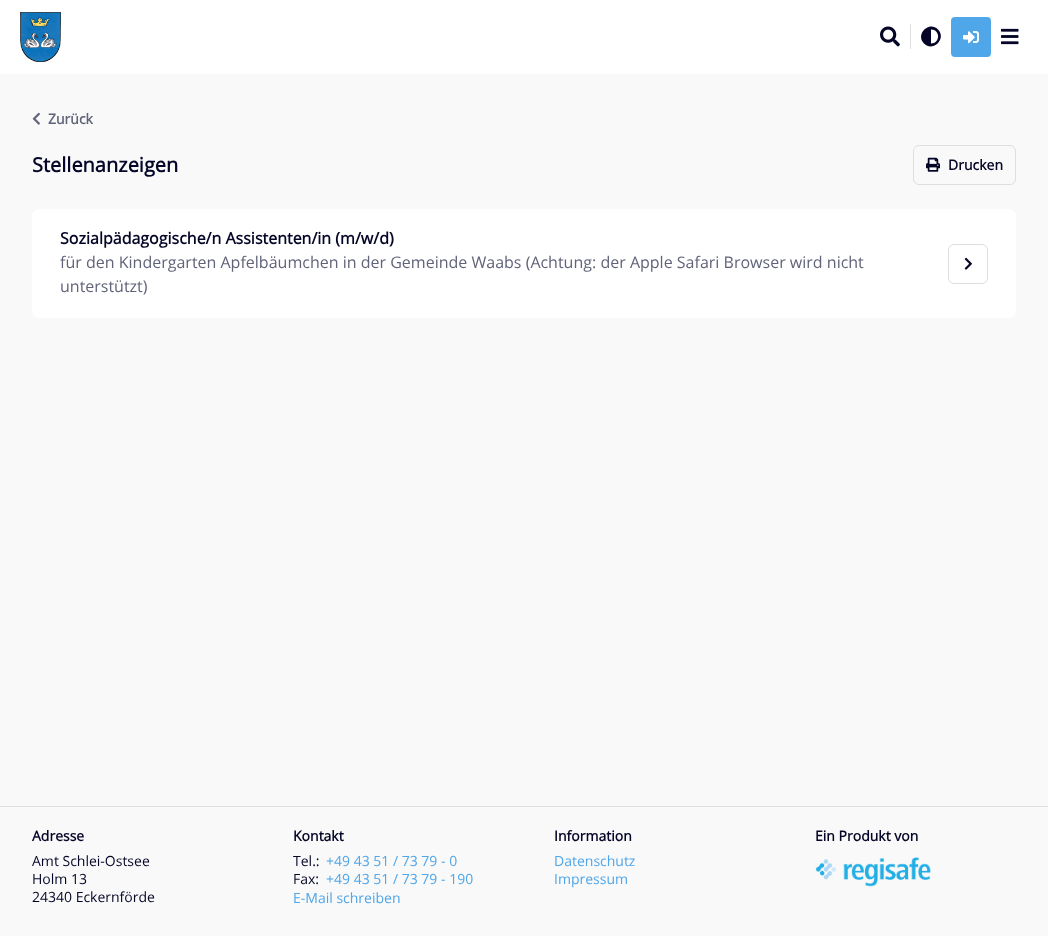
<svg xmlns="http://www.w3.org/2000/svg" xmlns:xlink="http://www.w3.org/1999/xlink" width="1048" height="937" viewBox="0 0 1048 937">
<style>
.cls-1{font:bold 14px Open Sans;fill:#616379}
.cls-2{font:bold 20px Open Sans;fill:#050627}
.cls-3{font:bold 14px Open Sans;fill:#050627}
.cls-4{font:bold 16px Open Sans;fill:#050627}
.cls-5{font:16px Open Sans;fill:#616379}
.cls-6{font:14px Open Sans;fill:#050627}
.cls-7{font:14px Open Sans;fill:#4fa6e8}
</style>
<rect width="100%" height="100%" fill="#ffffff"/>
<image xlink:href="image0.png" x="20" y="12" width="41" height="50"/>
<rect fill="#dedede" x="910" y="24" width="1" height="25"/>
<image xlink:href="image1.png" x="880" y="26" width="20" height="21"/>
<path fill="#050627" d="M924 43.5C915 34.5 929 20.5 938 29.5C947 38.5 933 52.5 924 43.5ZM931 43.5C940.5 43.5 940.5 29.5 931 29.5Z"/>
<rect fill="#4fa6e8" stroke="#4fa6e8" stroke-width="2" x="952" y="18" width="38" height="38" rx="3"/>
<image xlink:href="image2.png" x="963" y="31" width="16" height="13"/>
<image xlink:href="image3.png" x="1001" y="28" width="18" height="17"/>
<rect fill="#f9f9f9" x="0" y="74" width="1048" height="862"/>
<image xlink:href="image4.png" x="32" y="112" width="8" height="13"/>
<rect fill="none" stroke="#dedede" x="913.5" y="145.5" width="102" height="39" rx="5.5"/>
<image xlink:href="image5.png" x="926" y="157" width="14" height="15"/>
<rect fill="#ffffff" x="32" y="209" width="984" height="109" rx="8"/>
<rect fill="none" stroke="#dedede" x="948.5" y="244.5" width="39" height="39" rx="5.5"/>
<image xlink:href="image6.png" x="964" y="257" width="8" height="13"/>
<rect fill="#dedede" x="0" y="806" width="1048" height="1"/>
<image xlink:href="image7.png" x="815" y="857" width="116" height="30"/>
<text class="cls-1" x="48" y="124">Zurück</text>
<text class="cls-2" x="32" y="172">Stellenanzeigen</text>
<text class="cls-3" x="948" y="170">Drucken</text>
<text class="cls-4" x="60" y="244">Sozialpädagogische/n Assistenten/in (m/w/d)</text>
<text class="cls-5"><tspan x="60" y="268">für den Kindergarten Apfelbäumchen in der Gemeinde Waabs (Achtung: der Apple Safari Browser wird nicht</tspan><tspan x="60" y="292">unterstützt)</tspan></text>
<text class="cls-3" x="32" y="841">Adresse</text>
<text class="cls-6"><tspan x="32" y="866">Amt Schlei-Ostsee</tspan><tspan x="32" y="884">Holm 13</tspan><tspan x="32" y="902">24340 Eckernförde</tspan></text>
<text class="cls-3" x="293" y="841">Kontakt</text>
<text class="cls-6" x="293" y="866">Tel.:</text>
<text class="cls-7" x="326" y="866">+49 43 51 / 73 79 - 0</text>
<text class="cls-6" x="293" y="884">Fax:</text>
<text class="cls-7" x="326" y="884">+49 43 51 / 73 79 - 190</text>
<text class="cls-7" x="293" y="903">E-Mail schreiben</text>
<text class="cls-3" x="554" y="841">Information</text>
<text class="cls-7"><tspan x="554" y="866">Datenschutz</tspan><tspan x="554" y="884">Impressum</tspan></text>
<text class="cls-3" x="815" y="841">Ein Produkt von</text>
</svg>
